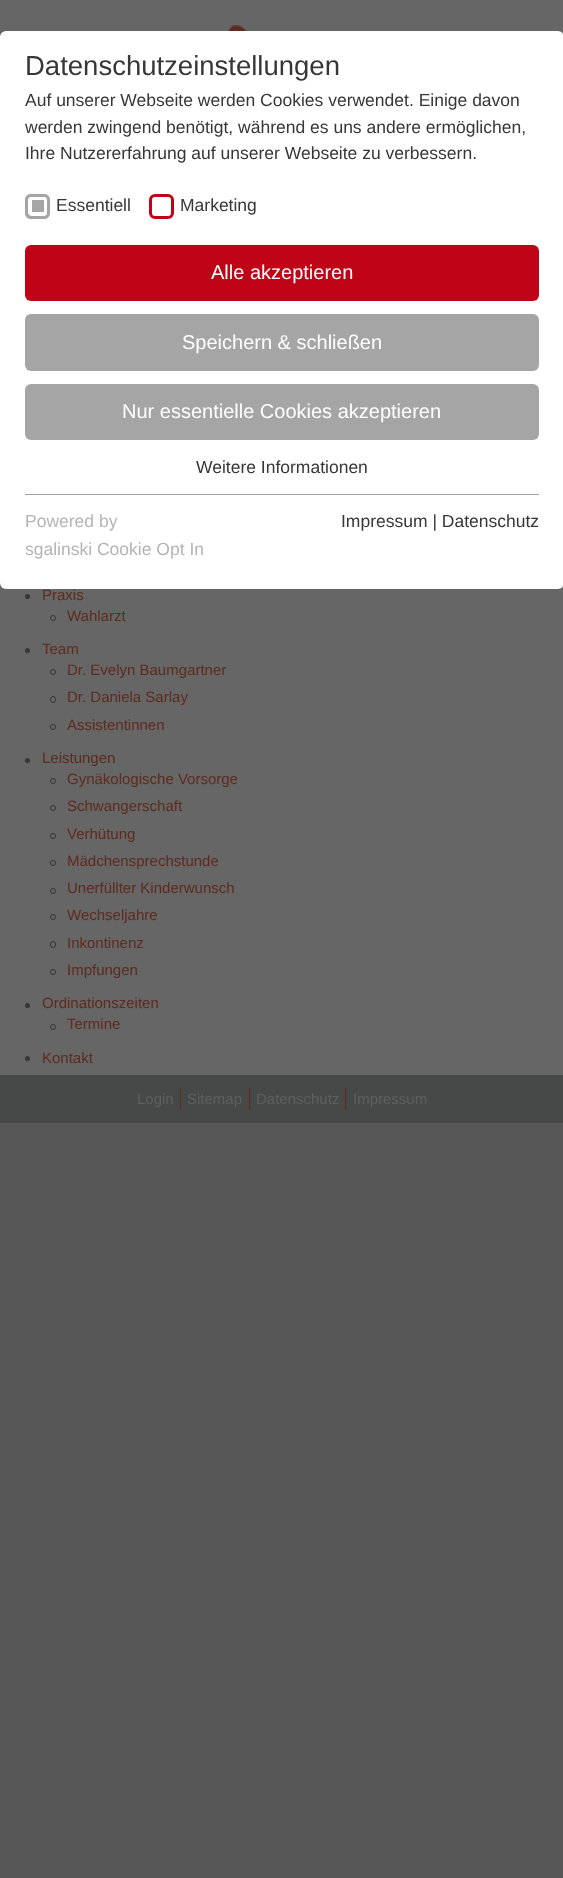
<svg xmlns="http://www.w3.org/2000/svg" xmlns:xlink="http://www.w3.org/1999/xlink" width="563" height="1878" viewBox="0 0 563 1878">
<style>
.cls-1{font:27.5px Liberation Sans;fill:#373737}
.cls-2{font:17.5px Liberation Sans;fill:#373737}
.cls-3{font:20px Liberation Sans;fill:#ffffff}
.cls-4{font:17.5px Liberation Sans;fill:#b4b4b4}
.cls-5{font:15px Liberation Sans;fill:#5e2b1e}
.cls-6{font:15px Liberation Sans;fill:#5f5f5f}
</style>
<rect width="100%" height="100%" fill="#575758"/>
<rect fill="#666666" x="0" y="0" width="563" height="1075"/>
<rect fill="#ffffff" x="0" y="31" width="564" height="558" rx="6"/>
<rect fill="#a5a5a5" x="25" y="194" width="25" height="25" rx="6"/>
<rect fill="none" stroke="#ffffff" stroke-width="4" x="30" y="198" width="16" height="16" rx="2"/>
<rect fill="none" stroke="#a5a5a5" stroke-width="3" x="26.5" y="195.5" width="22" height="22" rx="4.5"/>
<rect fill="none" stroke="#c00418" stroke-width="3" x="150.5" y="195.5" width="22" height="22" rx="4.5"/>
<rect fill="#c00418" x="25" y="245" width="514" height="56" rx="6"/>
<rect fill="#a5a5a5" x="25" y="314" width="514" height="57" rx="6"/>
<rect fill="#a5a5a5" x="25" y="384" width="514" height="56" rx="6"/>
<rect fill="#a5a5a5" x="25" y="494" width="514" height="1"/>
<image xlink:href="image0.png" x="32" y="25" width="426" height="6"/>
<circle fill="#363637" cx="27.5" cy="596.5" r="2.5"/>
<circle fill="none" stroke="#363637" cx="53" cy="618" r="2.5"/>
<circle fill="#363637" cx="27.5" cy="650.5" r="2.5"/>
<circle fill="none" stroke="#363637" cx="53" cy="672" r="2.5"/>
<rect fill="none" stroke="#363637" x="50.5" y="696.5" width="5" height="6" rx="2.5"/>
<circle fill="none" stroke="#363637" cx="53" cy="727" r="2.5"/>
<circle fill="#363637" cx="27.5" cy="760.5" r="2.5"/>
<circle fill="none" stroke="#363637" cx="53" cy="781" r="2.5"/>
<circle fill="none" stroke="#363637" cx="53" cy="808" r="2.5"/>
<circle fill="none" stroke="#363637" cx="53" cy="836" r="2.5"/>
<circle fill="none" stroke="#363637" cx="53" cy="863" r="2.5"/>
<circle fill="none" stroke="#363637" cx="53" cy="891" r="2.5"/>
<circle fill="none" stroke="#363637" cx="53" cy="917" r="2.5"/>
<rect fill="none" stroke="#363637" x="50.5" y="941.5" width="5" height="6" rx="2.5"/>
<circle fill="none" stroke="#363637" cx="53" cy="972" r="2.5"/>
<circle fill="#363637" cx="27.5" cy="1005.5" r="2.5"/>
<circle fill="none" stroke="#363637" cx="53" cy="1027" r="2.5"/>
<circle fill="#363637" cx="27.5" cy="1058.5" r="2.5"/>
<rect fill="#474848" x="0" y="1075" width="563" height="48"/>
<rect fill="#5e2b1e" x="180" y="1088" width="1" height="22"/>
<rect fill="#5e2b1e" x="249" y="1088" width="1" height="22"/>
<rect fill="#5e2b1e" x="345" y="1088" width="1" height="22"/>
<text class="cls-1" x="25" y="75">Datenschutzeinstellungen</text>
<text class="cls-2"><tspan x="25" y="106">Auf unserer Webseite werden Cookies verwendet. Einige davon</tspan><tspan x="25" y="133">werden zwingend benötigt, während es uns andere ermöglichen,</tspan><tspan x="25" y="159">Ihre Nutzererfahrung auf unserer Webseite zu verbessern.</tspan></text>
<text class="cls-2" x="56" y="211">Essentiell</text>
<text class="cls-2" x="180" y="211">Marketing</text>
<text class="cls-3" x="211" y="279">Alle akzeptieren</text>
<text class="cls-3" x="182" y="349">Speichern &amp; schließen</text>
<text class="cls-3" x="122" y="418">Nur essentielle Cookies akzeptieren</text>
<text class="cls-2" x="196" y="473">Weitere Informationen</text>
<text class="cls-4"><tspan x="25" y="527">Powered by</tspan><tspan x="25" y="555">sgalinski Cookie Opt In</tspan></text>
<text class="cls-2" x="341" y="527">Impressum | Datenschutz</text>
<text class="cls-5" x="42" y="600">Praxis</text>
<text class="cls-5" x="67" y="621">Wahlarzt</text>
<text class="cls-5" x="42" y="654">Team</text>
<text class="cls-5"><tspan x="67" y="675">Dr. Evelyn Baumgartner</tspan><tspan x="67" y="702">Dr. Daniela Sarlay</tspan><tspan x="67" y="730">Assistentinnen</tspan></text>
<text class="cls-5" x="42" y="763">Leistungen</text>
<text class="cls-5"><tspan x="67" y="784">Gynäkologische Vorsorge</tspan><tspan x="67" y="811">Schwangerschaft</tspan><tspan x="67" y="839">Verhütung</tspan><tspan x="67" y="866">Mädchensprechstunde</tspan><tspan x="67" y="893">Unerfüllter Kinderwunsch</tspan><tspan x="67" y="920">Wechseljahre</tspan><tspan x="67" y="948">Inkontinenz</tspan><tspan x="67" y="975">Impfungen</tspan></text>
<text class="cls-5" x="42" y="1008">Ordinationszeiten</text>
<text class="cls-5" x="67" y="1029">Termine</text>
<text class="cls-5" x="42" y="1063">Kontakt</text>
<text class="cls-6" x="137" y="1104">Login</text>
<text class="cls-6" x="187" y="1104">Sitemap</text>
<text class="cls-6" x="256" y="1104">Datenschutz</text>
<text class="cls-6" x="353" y="1104">Impressum</text>
</svg>
